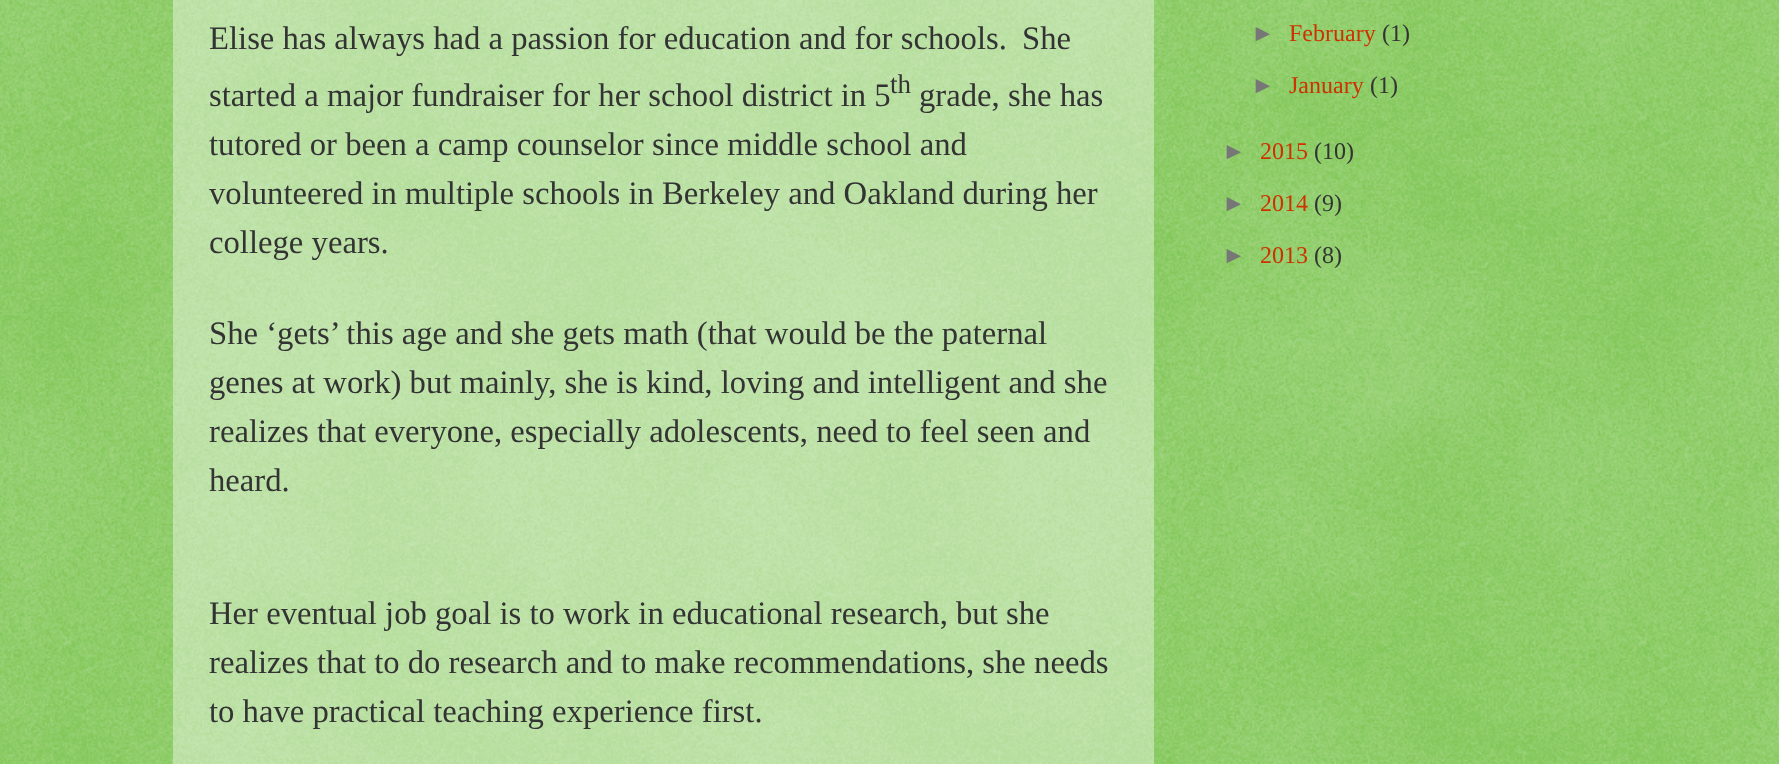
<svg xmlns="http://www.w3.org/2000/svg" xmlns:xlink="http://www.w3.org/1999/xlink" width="1779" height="764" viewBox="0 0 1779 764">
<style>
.cls-1{font:32.7px Liberation Serif;fill:#333333}
.cls-2{font:27px Liberation Serif;fill:#333333}
.cls-3{font:24px Liberation Sans;fill:#777777}
.cls-4{font:24px Liberation Serif;fill:#cc3300}
.cls-5{font:24px Liberation Serif;fill:#333333}
</style>
<rect width="100%" height="100%" fill="#66bb33"/>
<image xlink:href="image0.png" x="0" y="0" width="1779" height="764"/>
<rect fill="#ffffff" fill-opacity="0.4" x="173" y="0" width="981" height="764"/>
<text class="cls-1" x="209" y="49">Elise has always had a passion for education and for schools.</text>
<text class="cls-1" x="1022" y="49">She</text>
<text class="cls-1" x="209" y="106">started a major fundraiser for her school district in 5</text>
<text class="cls-2" x="890" y="93">th</text>
<text class="cls-1" x="919" y="106">grade, she has</text>
<text class="cls-1"><tspan x="209" y="155">tutored or been a camp counselor since middle school and</tspan><tspan x="209" y="204">volunteered in multiple schools in Berkeley and Oakland during her</tspan><tspan x="209" y="253">college years.</tspan></text>
<text class="cls-1"><tspan x="209" y="344">She ‘gets’ this age and she gets math (that would be the paternal</tspan><tspan x="209" y="393">genes at work) but mainly, she is kind, loving and intelligent and she</tspan><tspan x="209" y="442">realizes that everyone, especially adolescents, need to feel seen and</tspan><tspan x="209" y="491">heard.</tspan></text>
<text class="cls-1"><tspan x="209" y="624">Her eventual job goal is to work in educational research, but she</tspan><tspan x="209" y="673">realizes that to do research and to make recommendations, she needs</tspan><tspan x="209" y="722">to have practical teaching experience first.</tspan></text>
<text class="cls-3" x="1251" y="41">►</text>
<text class="cls-4" x="1289" y="41">February</text>
<text class="cls-5" x="1382" y="41">(1)</text>
<text class="cls-3" x="1251" y="93">►</text>
<text class="cls-4" x="1289" y="93">January</text>
<text class="cls-5" x="1370" y="93">(1)</text>
<text class="cls-3" x="1222" y="159">►</text>
<text class="cls-4" x="1260" y="159">2015</text>
<text class="cls-5" x="1314" y="159">(10)</text>
<text class="cls-3" x="1222" y="211">►</text>
<text class="cls-4" x="1260" y="211">2014</text>
<text class="cls-5" x="1314" y="211">(9)</text>
<text class="cls-3" x="1222" y="263">►</text>
<text class="cls-4" x="1260" y="263">2013</text>
<text class="cls-5" x="1314" y="263">(8)</text>
</svg>
